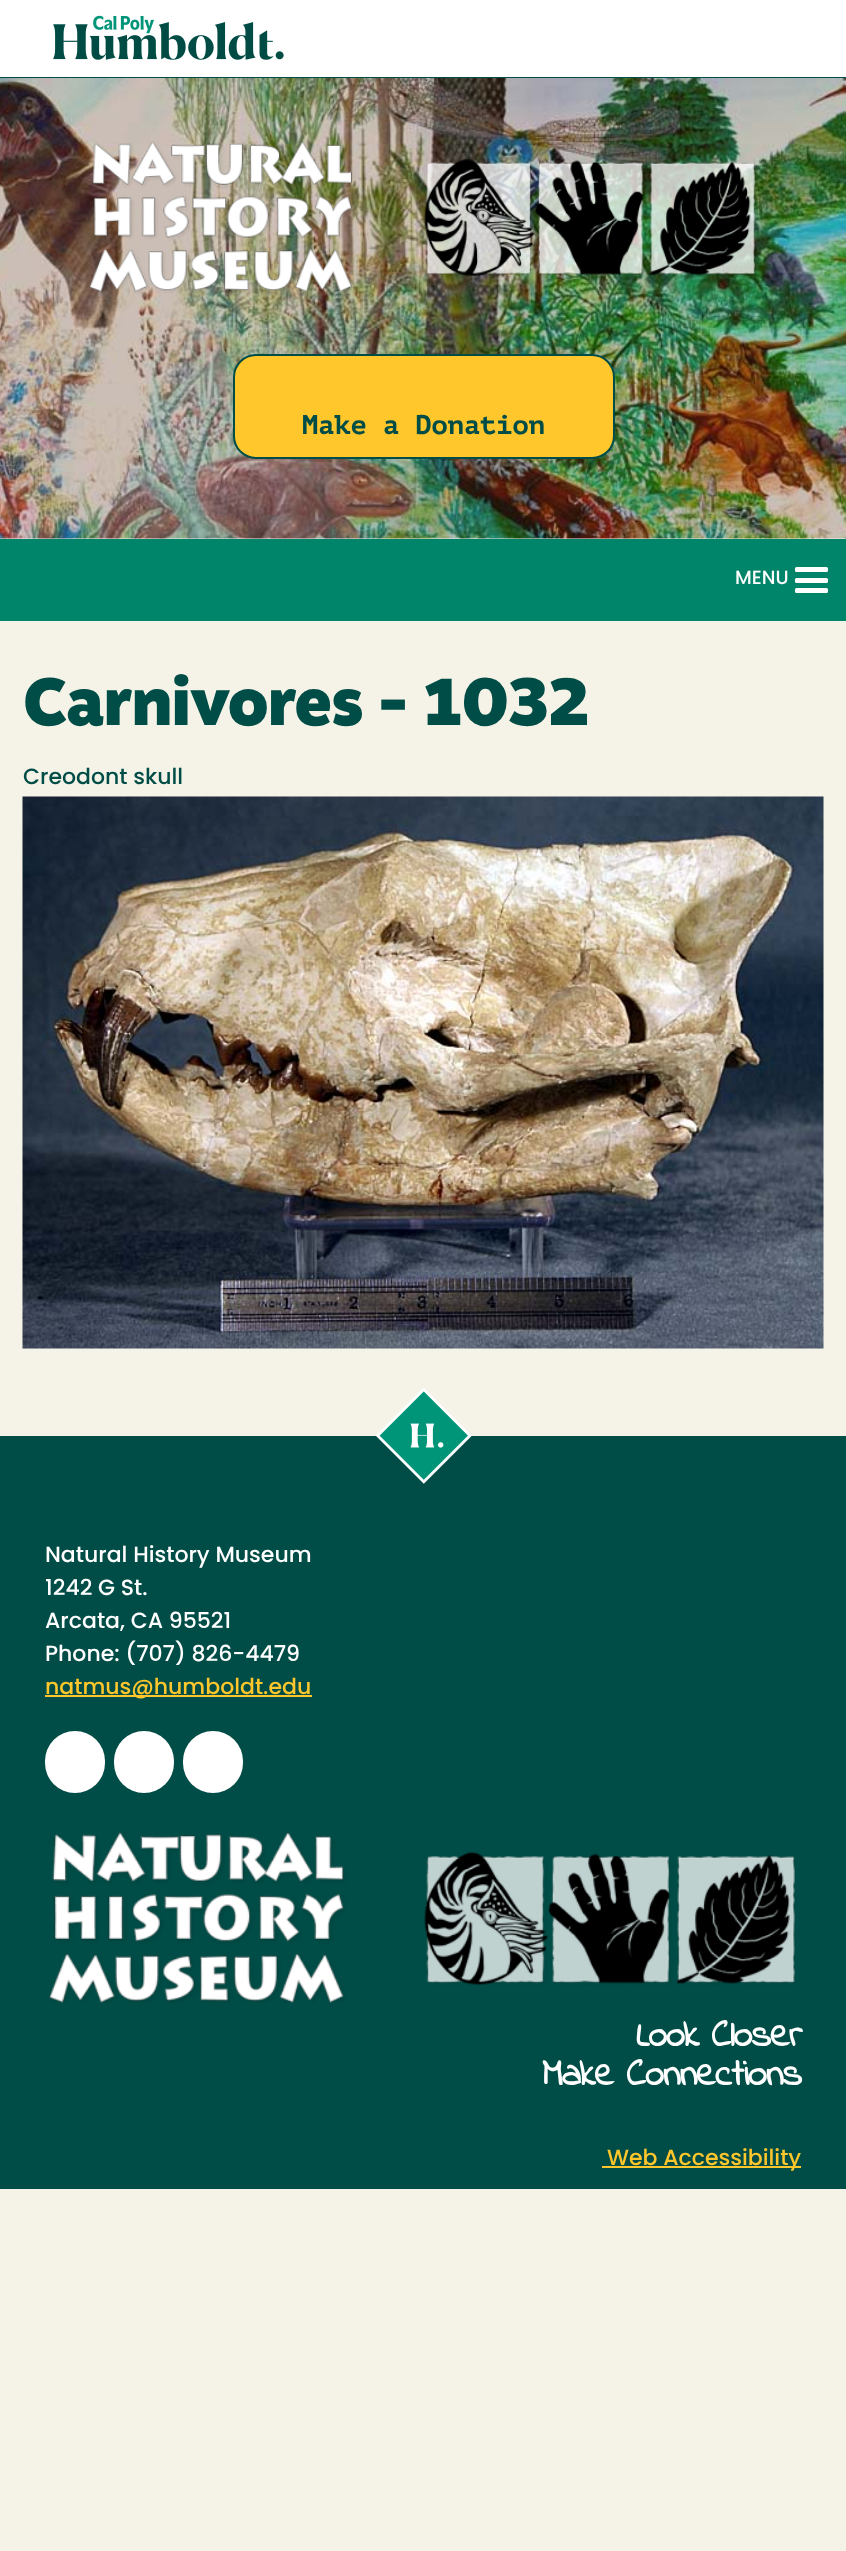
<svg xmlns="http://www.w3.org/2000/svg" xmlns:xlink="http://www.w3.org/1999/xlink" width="846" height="2551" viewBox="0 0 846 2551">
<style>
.cls-1{font:bold 27px PT Mono;fill:#004c46}
.cls-2{font:500 19px Poppins;fill:#ffffff}
.cls-3{font:900 66.25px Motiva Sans;letter-spacing:-1.1px;fill:#004c46}
.cls-4{font:500 22px Poppins;fill:#004c46}
.cls-5{font:500 22px Poppins;fill:#ffffff}
.cls-6{font:500 22px Poppins;fill:#ffc72c}
.cls-7{font:bold 38.5px Indie Flower;letter-spacing:-1.1px;fill:#ffffff}
</style>
<rect width="100%" height="100%" fill="#f5f3e7"/>
<rect fill="#ffffff" x="0" y="0" width="846" height="77"/>
<rect fill="#004c46" x="0" y="77" width="846" height="1"/>
<image xlink:href="image0.png" x="53" y="15" width="231" height="45"/>
<image xlink:href="image1.png" x="0" y="78" width="846" height="461"/>
<image xlink:href="image2.png" x="89" y="141" width="667" height="153"/>
<rect fill="#ffc72c" stroke="#004c46" stroke-width="2" x="234" y="355" width="380" height="103" rx="22"/>
<rect fill="#00856a" x="0" y="539" width="846" height="82"/>
<rect fill="#ffffff" x="795" y="567" width="33" height="5" rx="1.5"/>
<rect fill="#ffffff" x="795" y="578" width="33" height="5" rx="1.5"/>
<rect fill="#ffffff" x="795" y="588" width="33" height="5" rx="1.5"/>
<image xlink:href="image3.png" x="22" y="796" width="802" height="553"/>
<rect fill="#004c46" x="0" y="1436" width="846" height="753"/>
<image xlink:href="image4.png" x="376" y="1388" width="96" height="96"/>
<rect fill="#ffc72c" x="45" y="1695" width="267" height="2"/>
<rect fill="#ffffff" x="45" y="1731" width="60" height="62" rx="30"/>
<rect fill="#ffffff" x="114" y="1731" width="60" height="62" rx="30"/>
<rect fill="#ffffff" x="183" y="1731" width="60" height="62" rx="30"/>
<image xlink:href="image5.png" x="48" y="1832" width="747" height="171"/>
<rect fill="#ffc72c" x="602" y="2166" width="199" height="2"/>
<text class="cls-1" x="302" y="434">Make a Donation</text>
<text class="cls-2" x="735" y="584">MENU</text>
<text class="cls-3" x="23" y="725">Carnivores - 1032</text>
<text class="cls-4" x="23" y="784">Creodont skull</text>
<text class="cls-5"><tspan x="45" y="1562">Natural History Museum</tspan><tspan x="45" y="1595">1242 G St.</tspan><tspan x="45" y="1628">Arcata, CA 95521</tspan><tspan x="45" y="1661">Phone: (707) 826-4479</tspan></text>
<text class="cls-6" x="45" y="1694">natmus@humboldt.edu</text>
<text class="cls-7" x="636" y="2046">Look Closer</text>
<text class="cls-7" x="542" y="2085">Make Connections</text>
<text class="cls-6" x="607" y="2165">Web Accessibility</text>
</svg>
